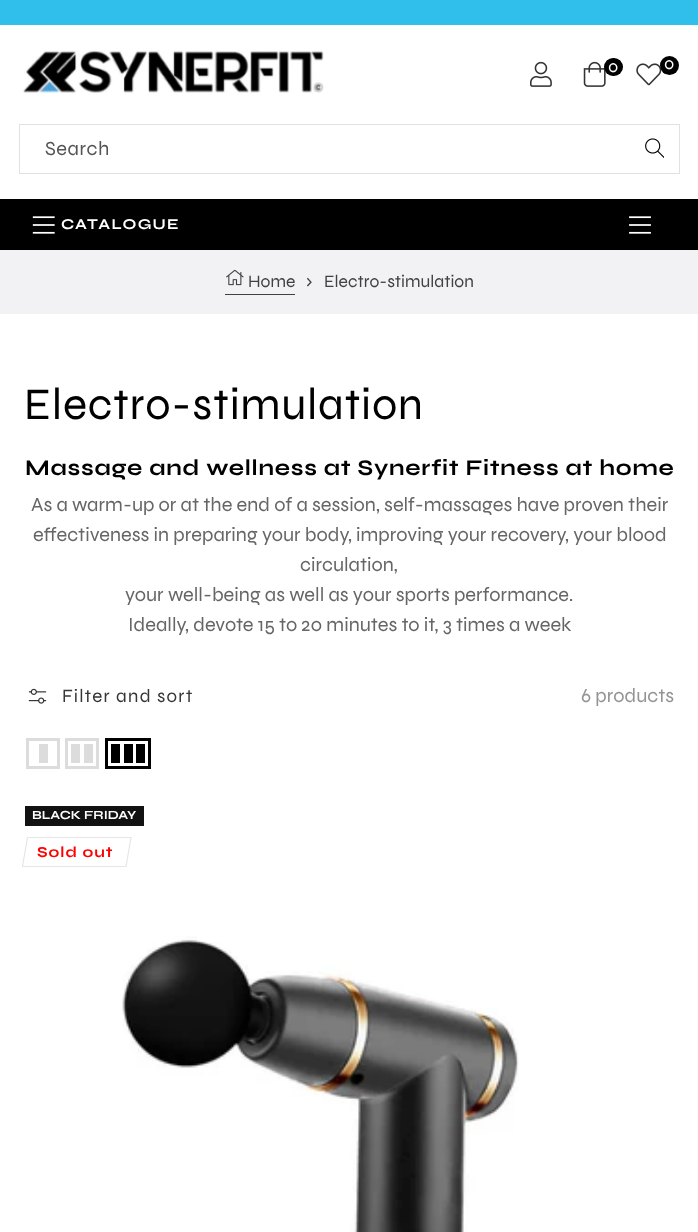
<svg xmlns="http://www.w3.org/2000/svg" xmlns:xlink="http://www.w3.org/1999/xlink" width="698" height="1232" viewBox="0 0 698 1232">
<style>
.cls-1{font:17.5px Syne;fill:#ffffff}
.cls-2{font:20px Syne;letter-spacing:0.5px;fill:#555555}
.cls-3{font:bold 15px Syne;letter-spacing:1.25px;fill:#ffffff}
.cls-4{font:17.5px Syne;fill:#414141}
.cls-5{font:45px Syne;letter-spacing:0.75px;fill:#000000}
.cls-6{font:bold 22.5px Syne;letter-spacing:0.75px;fill:#000000}
.cls-7{font:20px Syne;fill:#666666}
.cls-8{font:18.75px Syne;letter-spacing:1.25px;fill:#363636}
.cls-9{font:20px Syne;fill:#949494}
.cls-10{font:bold 12.5px Syne;fill:#ffffff}
.cls-11{font:bold 15.25px Syne;letter-spacing:1px;fill:#ff0000}
</style>
<rect width="100%" height="100%" fill="#ffffff"/>
<rect fill="#30beeb" x="0" y="0" width="698" height="25"/>
<image xlink:href="image0.png" x="23" y="50" width="301" height="44"/>
<image xlink:href="image1.png" x="530" y="61" width="22" height="26"/>
<image xlink:href="image2.png" x="583" y="61" width="23" height="26"/>
<rect fill="#000000" x="604" y="58" width="19" height="18" rx="9"/>
<image xlink:href="image3.png" x="636" y="63" width="26" height="23"/>
<circle fill="#000000" cx="669.5" cy="65.5" r="9.5"/>
<rect fill="none" stroke="#e1e1e1" x="19.5" y="124.5" width="660" height="49"/>
<image xlink:href="image4.png" x="645" y="138" width="19" height="20"/>
<rect fill="#000000" x="0" y="199" width="698" height="51"/>
<image xlink:href="image5.png" x="32" y="216" width="23" height="18"/>
<image xlink:href="image6.png" x="629" y="216" width="22" height="18"/>
<rect fill="#f2f2f4" x="0" y="250" width="698" height="64"/>
<rect fill="#414141" x="225" y="294" width="70" height="1"/>
<image xlink:href="image7.png" x="226" y="269" width="18" height="17"/>
<image xlink:href="image8.png" x="28" y="688" width="19" height="16"/>
<rect fill="none" stroke="#dcdcdc" stroke-width="3" x="27.5" y="739.5" width="31" height="28"/>
<rect fill="#dcdcdc" x="39" y="744" width="9" height="19"/>
<rect fill="none" stroke="#dcdcdc" stroke-width="3" x="66.5" y="739.5" width="31" height="28"/>
<rect fill="#dcdcdc" x="84" y="744" width="9" height="19"/>
<rect fill="#dcdcdc" x="71" y="744" width="9" height="19"/>
<rect fill="none" stroke="#000000" stroke-width="3" x="106.5" y="739.5" width="43" height="28"/>
<rect fill="#000000" x="136" y="744" width="9" height="19"/>
<rect fill="#000000" x="124" y="744" width="9" height="19"/>
<rect fill="#000000" x="111" y="744" width="9" height="19"/>
<rect fill="#121212" x="25" y="806" width="119" height="20"/>
<path fill="none" stroke="#e6e6e6" stroke-width="1.2" d="M27.5 837.5H131L126 866.5H22.5Z"/>
<image xlink:href="image9.png" x="122" y="936" width="397" height="296"/>
<text class="cls-1" x="608" y="72">0</text>
<text class="cls-1" x="664" y="69">0</text>
<text class="cls-2" x="45" y="155">Search</text>
<text class="cls-3" x="61" y="229">CATALOGUE</text>
<text class="cls-4" x="248" y="287">Home</text>
<text class="cls-4" x="306" y="287">›</text>
<text class="cls-4" x="324" y="287">Electro-stimulation</text>
<text class="cls-5" x="24" y="419">Electro-stimulation</text>
<text class="cls-6" x="25" y="475">Massage and wellness at Synerfit Fitness at home</text>
<text class="cls-7" x="31" y="511">As a warm-up or at the end of a session, self-massages have proven their</text>
<text class="cls-7" x="33" y="541">effectiveness in preparing your body, improving your recovery, your blood</text>
<text class="cls-7" x="300" y="571">circulation,</text>
<text class="cls-7" x="125" y="601">your well-being as well as your sports performance.</text>
<text class="cls-7" x="128" y="631">Ideally, devote 15 to 20 minutes to it, 3 times a week</text>
<text class="cls-8" x="62" y="702">Filter and sort</text>
<text class="cls-9" x="581" y="702">6 products</text>
<text class="cls-10" x="32" y="819">BLACK FRIDAY</text>
<text class="cls-11" x="37" y="857">Sold out</text>
</svg>
